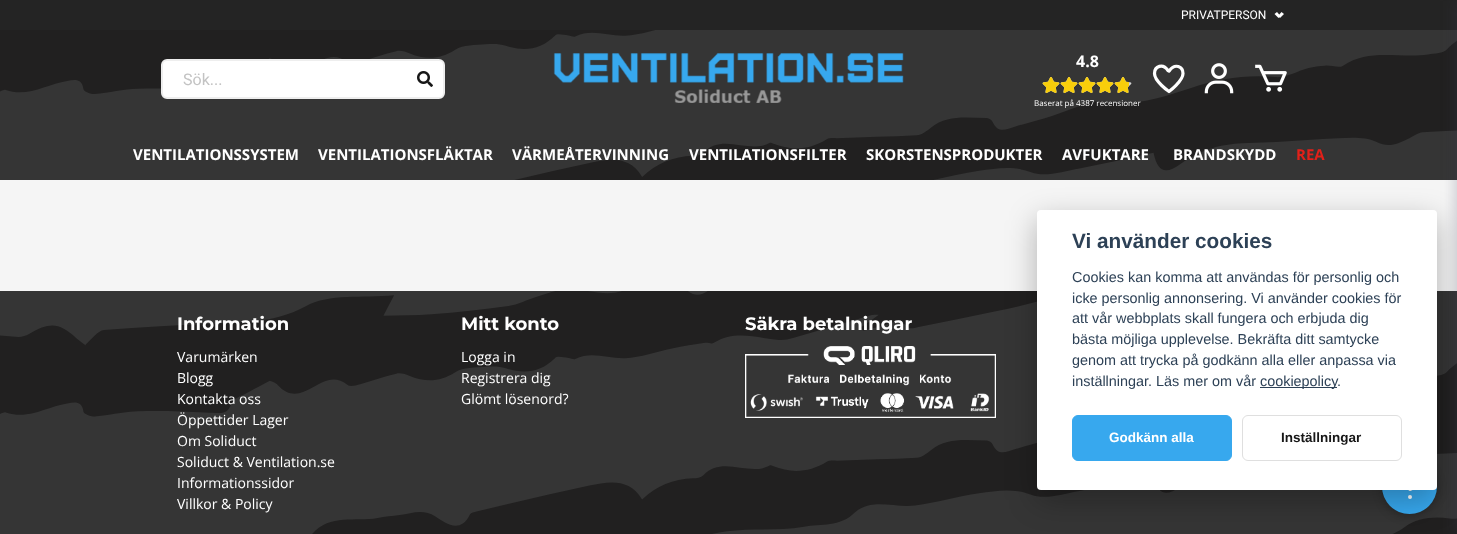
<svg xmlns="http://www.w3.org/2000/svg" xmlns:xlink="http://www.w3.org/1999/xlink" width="1457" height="534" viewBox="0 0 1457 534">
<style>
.cls-1{font:12px Roboto;fill:#ffffff}
.cls-2{font:16px Roboto;fill:#c3c3c3}
.cls-3{font:bold 16px Open Sans;fill:#ffffff}
.cls-4{font:8px Open Sans;fill:#ffffff}
.cls-5{font:bold 15px Open Sans;fill:#ffffff}
.cls-6{font:bold 15px Open Sans;fill:#e22019}
.cls-7{font:bold 18px Montserrat;fill:#ffffff}
.cls-8{font:14px Open Sans;fill:#ffffff}
.cls-9{font:bold 20.75px Liberation Sans;fill:#2d4156}
.cls-10{font:14.4px Liberation Sans;fill:#2d4156}
.cls-11{font:bold 13.5px Liberation Sans;fill:#ffffff}
.cls-12{font:bold 13.5px Liberation Sans;fill:#171717}
</style>
<rect width="100%" height="100%" fill="#f5f5f5"/>
<image xlink:href="image0.png" x="0" y="30" width="1457" height="150"/>
<rect fill="#242424" x="0" y="0" width="1457" height="30"/>
<path fill="#ffffff" d="M1278 16L1281.5 12L1284 14L1280 18Z"/>
<path fill="#ffffff" d="M1274.5 14L1277 12L1280.5 16L1278.5 18Z"/>
<rect fill="#ffffff" stroke="#eeeeee" stroke-width="2" x="162" y="60" width="282" height="38" rx="5"/>
<image xlink:href="image1.png" x="417" y="71" width="16" height="16"/>
<image xlink:href="image2.png" x="553" y="53" width="351" height="50"/>
<image xlink:href="image3.png" x="1042" y="77" width="90" height="16"/>
<image xlink:href="image4.png" x="1042" y="77" width="87" height="16"/>
<path fill="none" stroke="#ffffff" stroke-width="3.2" stroke-linecap="round" stroke-linejoin="round" d="M1168 70.5C1163 63 1154.5 66 1154.5 73.5C1154.5 81.5 1169 91.5 1169 91.5C1169 91.5 1183 81 1183 73.5C1183 66.5 1175 63 1169.5 70.5L1169 71Z"/>
<image xlink:href="image5.png" x="1204" y="63" width="30" height="31"/>
<image xlink:href="image6.png" x="1255" y="64" width="32" height="28"/>
<image xlink:href="image7.png" x="0" y="291" width="1457" height="243"/>
<rect fill="#3c4257" fill-opacity="0.3" filter="blur(7.5px)" x="1457" y="1" width="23" height="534"/>
<image xlink:href="image8.png" x="745" y="346" width="251" height="72"/>
<rect fill="#000000" fill-opacity="0.25" filter="blur(5px)" x="1382" y="461" width="55" height="55" rx="27.5"/>
<circle fill="#37a8ee" cx="1409.5" cy="486.5" r="27.5"/>
<path fill="none" stroke="#ffffff" stroke-width="4" stroke-linecap="round" stroke-linejoin="round" d="M1404 481C1404.5 479.5 1406 478.5 1407.5 477.5C1414.5 474 1421 485.5 1410 489M1410 497H1410"/>
<rect fill="#020203" fill-opacity="0.28" filter="blur(15px)" x="1037" y="220" width="400" height="280" rx="4"/>
<rect fill="#ffffff" x="1037" y="210" width="400" height="280" rx="4"/>
<rect fill="#2d4156" x="1260" y="387" width="77" height="1"/>
<rect fill="#37a8ee" stroke="#37a8ee" x="1072.5" y="415.5" width="159" height="45" rx="5.5"/>
<rect fill="none" stroke="#dfdfdf" x="1242.5" y="415.5" width="159" height="45" rx="5.5"/>
<text class="cls-1" x="1181" y="19">PRIVATPERSON</text>
<text class="cls-2" x="183" y="85">Sök...</text>
<text class="cls-3" x="1076" y="67">4.8</text>
<text class="cls-4" x="1034" y="106">Baserat på 4387 recensioner</text>
<text class="cls-5" x="133" y="160">VENTILATIONSSYSTEM</text>
<text class="cls-5" x="318" y="160">VENTILATIONSFLÄKTAR</text>
<text class="cls-5" x="512" y="160">VÄRMEÅTERVINNING</text>
<text class="cls-5" x="689" y="160">VENTILATIONSFILTER</text>
<text class="cls-5" x="866" y="160">SKORSTENSPRODUKTER</text>
<text class="cls-5" x="1062" y="160">AVFUKTARE</text>
<text class="cls-5" x="1173" y="160">BRANDSKYDD</text>
<text class="cls-6" x="1296" y="160">REA</text>
<text class="cls-7" x="177" y="330">Information</text>
<text class="cls-8"><tspan x="177" y="362">Varumärken</tspan><tspan x="177" y="383">Blogg</tspan><tspan x="177" y="404">Kontakta oss</tspan><tspan x="177" y="425">Öppettider Lager</tspan><tspan x="177" y="446">Om Soliduct</tspan><tspan x="177" y="467">Soliduct &amp; Ventilation.se</tspan><tspan x="177" y="488">Informationssidor</tspan><tspan x="177" y="509">Villkor &amp; Policy</tspan></text>
<text class="cls-7" x="461" y="330">Mitt konto</text>
<text class="cls-8"><tspan x="461" y="362">Logga in</tspan><tspan x="461" y="383">Registrera dig</tspan><tspan x="461" y="404">Glömt lösenord?</tspan></text>
<text class="cls-7" x="745" y="330">Säkra betalningar</text>
<text class="cls-9" x="1072" y="248">Vi använder cookies</text>
<text class="cls-10"><tspan x="1072" y="282">Cookies kan komma att användas för personlig och</tspan><tspan x="1072" y="303">icke personlig annonsering. Vi använder cookies för</tspan><tspan x="1072" y="323">att vår webbplats skall fungera och erbjuda dig</tspan><tspan x="1072" y="344">bästa möjliga upplevelse. Bekräfta ditt samtycke</tspan><tspan x="1072" y="365">genom att trycka på godkänn alla eller anpassa via</tspan><tspan x="1072" y="386">inställningar. Läs mer om vår</tspan></text>
<text class="cls-10" x="1260" y="386">cookiepolicy</text>
<text class="cls-10" x="1337" y="386">.</text>
<text class="cls-11" x="1109" y="442">Godkänn alla</text>
<text class="cls-12" x="1281" y="442">Inställningar</text>
</svg>
